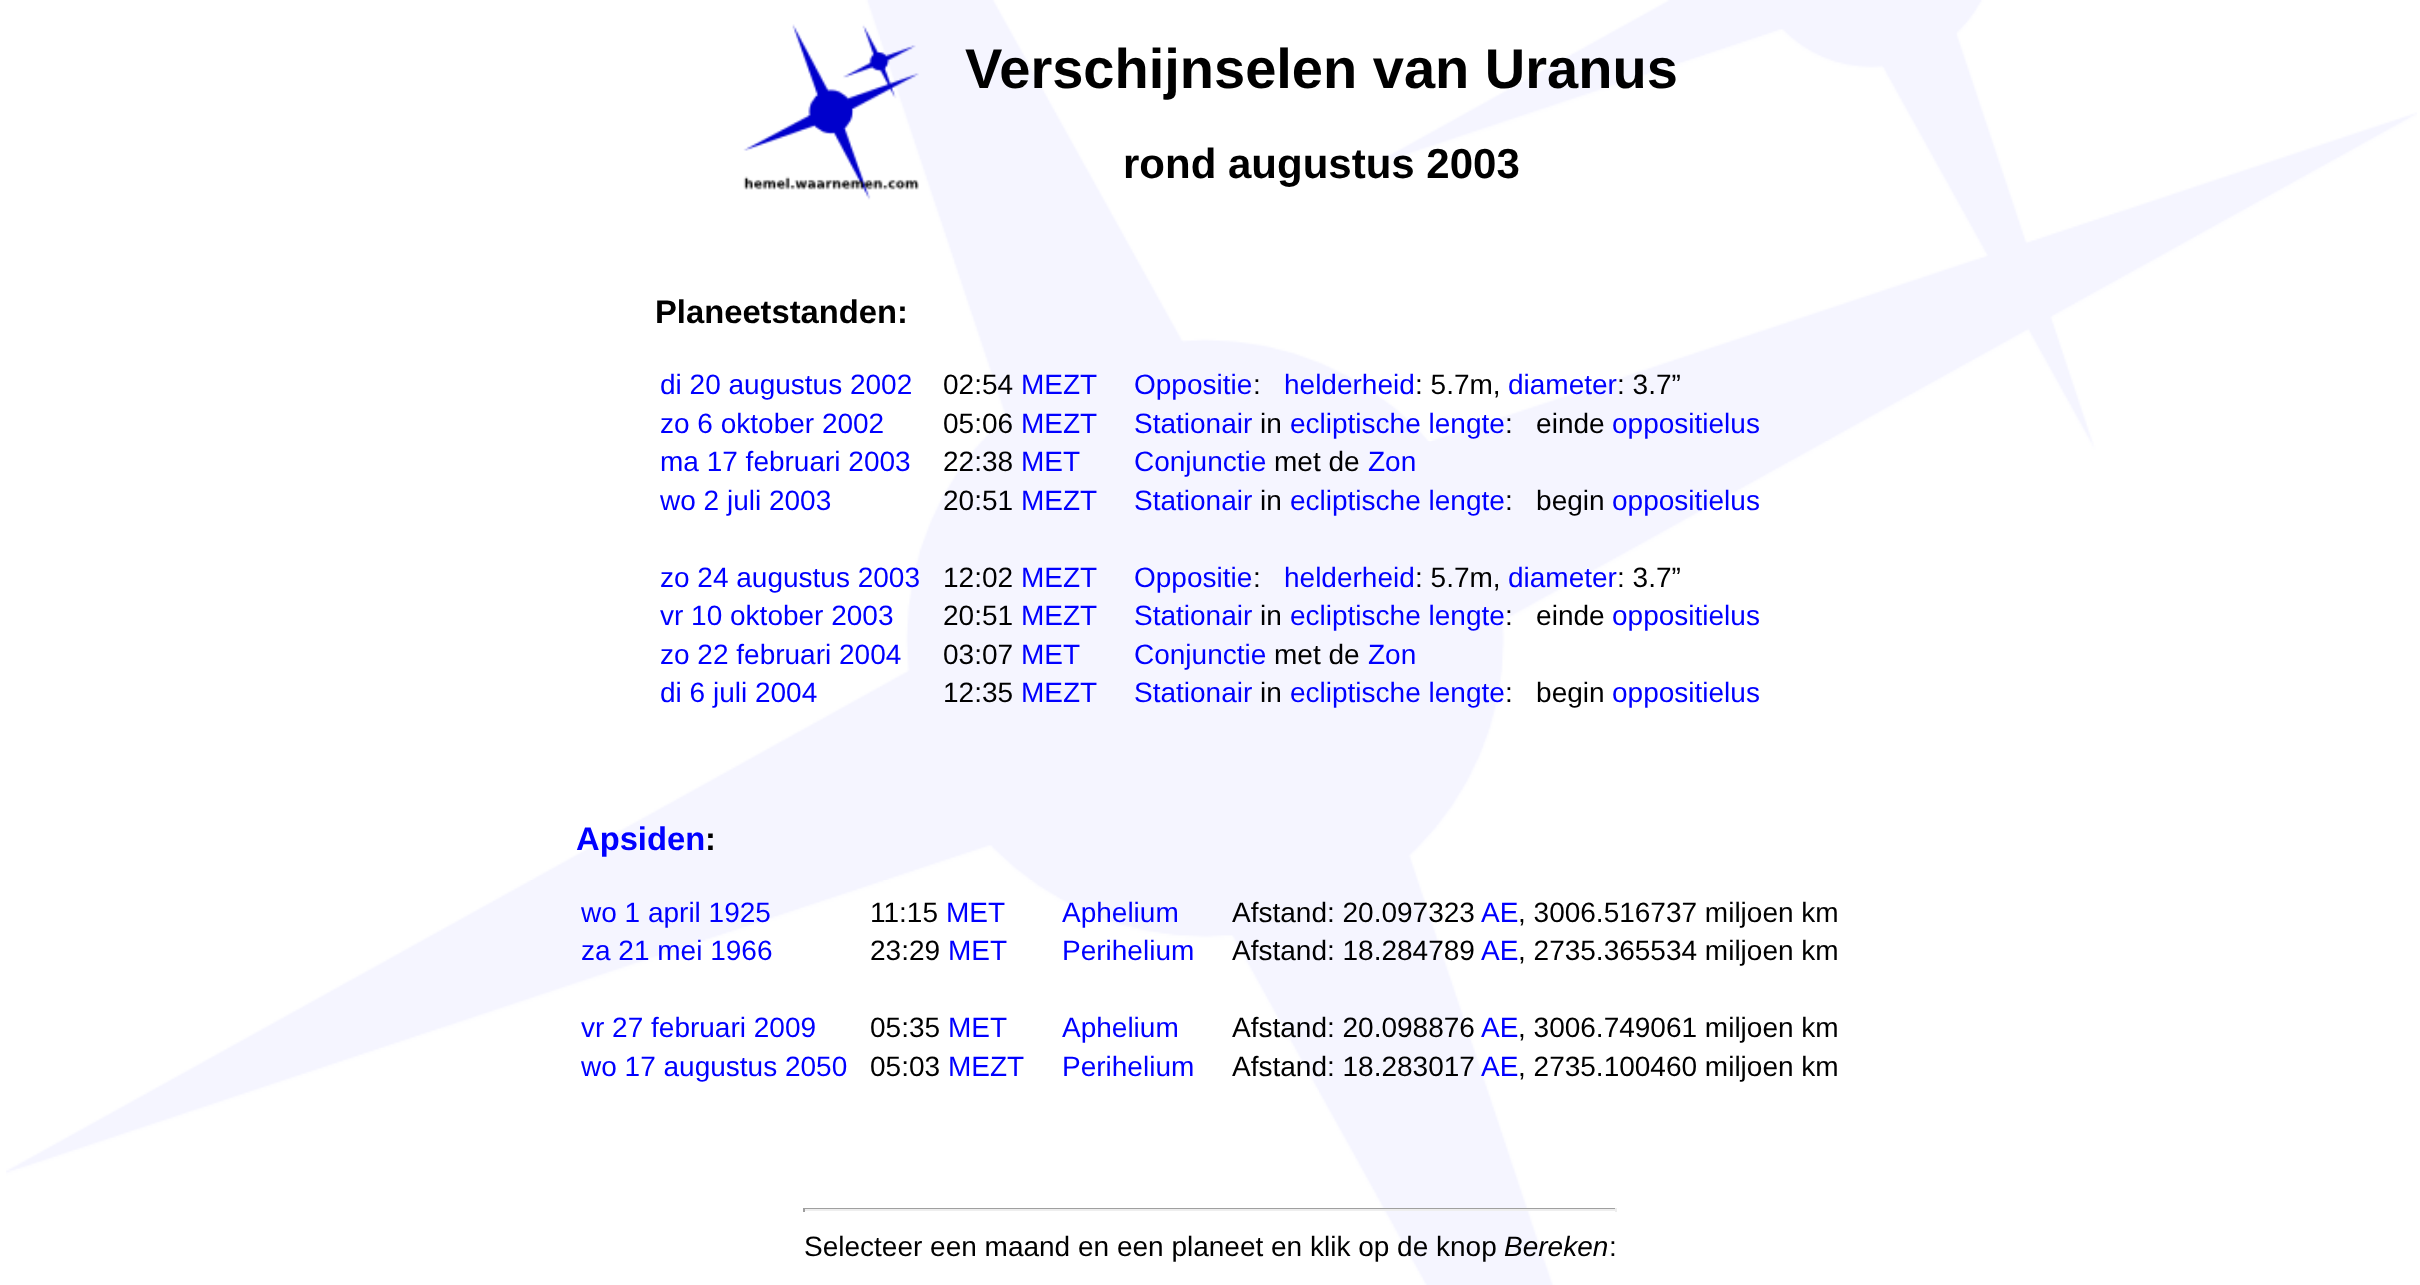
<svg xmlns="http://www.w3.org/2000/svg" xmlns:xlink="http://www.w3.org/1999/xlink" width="2420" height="1285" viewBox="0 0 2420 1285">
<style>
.cls-1{font:bold 56px Liberation Sans;fill:#000000}
.cls-2{font:bold 42px Liberation Sans;fill:#000000}
.cls-3{font:bold 32.75px Liberation Sans;fill:#000000}
.cls-4{font:28px Liberation Sans;fill:#0000ff}
.cls-5{font:28px Liberation Sans;fill:#000000}
.cls-6{font:bold 32.75px Liberation Sans;fill:#0000ff}
.cls-7{font:italic 28px Liberation Sans;fill:#000000}
</style>
<rect width="100%" height="100%" fill="#ffffff"/>
<image xlink:href="image0.png" x="6" y="0" width="2411" height="1285"/>
<image xlink:href="image1.png" x="743" y="24" width="176" height="176"/>
<rect fill="#9f9f9f" x="803" y="1208" width="814" height="1"/>
<rect fill="#eeeeee" x="1615" y="1208" width="2" height="4"/>
<rect fill="#eeeeee" x="803" y="1209" width="814" height="2"/>
<rect fill="#9f9f9f" x="803" y="1208" width="2" height="4"/>
<text class="cls-1" x="965" y="88">Verschijnselen van Uranus</text>
<text class="cls-2" x="1123" y="178">rond augustus 2003</text>
<text class="cls-3" x="655" y="323">Planeetstanden:</text>
<text class="cls-4" x="660" y="394">di 20 augustus 2002</text>
<text class="cls-5" x="943" y="394">02:54</text>
<text class="cls-4" x="1021" y="394">MEZT</text>
<text class="cls-4" x="1134" y="394">Oppositie</text>
<text class="cls-5" x="1253" y="394">:</text>
<text class="cls-4" x="1284" y="394">helderheid</text>
<text class="cls-5" x="1415" y="394">: 5.7m,</text>
<text class="cls-4" x="1508" y="394">diameter</text>
<text class="cls-5" x="1617" y="394">: 3.7”</text>
<text class="cls-4" x="660" y="433">zo 6 oktober 2002</text>
<text class="cls-5" x="943" y="433">05:06</text>
<text class="cls-4" x="1021" y="433">MEZT</text>
<text class="cls-4" x="1134" y="433">Stationair</text>
<text class="cls-5" x="1260" y="433">in</text>
<text class="cls-4" x="1290" y="433">ecliptische lengte</text>
<text class="cls-5" xml:space="preserve" x="1505" y="433">:   einde</text>
<text class="cls-4" x="1612" y="433">oppositielus</text>
<text class="cls-4" x="660" y="471">ma 17 februari 2003</text>
<text class="cls-5" x="943" y="471">22:38</text>
<text class="cls-4" x="1021" y="471">MET</text>
<text class="cls-4" x="1134" y="471">Conjunctie</text>
<text class="cls-5" x="1274" y="471">met de</text>
<text class="cls-4" x="1368" y="471">Zon</text>
<text class="cls-4" x="660" y="510">wo 2 juli 2003</text>
<text class="cls-5" x="943" y="510">20:51</text>
<text class="cls-4" x="1021" y="510">MEZT</text>
<text class="cls-4" x="1134" y="510">Stationair</text>
<text class="cls-5" x="1260" y="510">in</text>
<text class="cls-4" x="1290" y="510">ecliptische lengte</text>
<text class="cls-5" xml:space="preserve" x="1505" y="510">:   begin</text>
<text class="cls-4" x="1612" y="510">oppositielus</text>
<text class="cls-4" x="660" y="587">zo 24 augustus 2003</text>
<text class="cls-5" x="943" y="587">12:02</text>
<text class="cls-4" x="1021" y="587">MEZT</text>
<text class="cls-4" x="1134" y="587">Oppositie</text>
<text class="cls-5" x="1253" y="587">:</text>
<text class="cls-4" x="1284" y="587">helderheid</text>
<text class="cls-5" x="1415" y="587">: 5.7m,</text>
<text class="cls-4" x="1508" y="587">diameter</text>
<text class="cls-5" x="1617" y="587">: 3.7”</text>
<text class="cls-4" x="660" y="625">vr 10 oktober 2003</text>
<text class="cls-5" x="943" y="625">20:51</text>
<text class="cls-4" x="1021" y="625">MEZT</text>
<text class="cls-4" x="1134" y="625">Stationair</text>
<text class="cls-5" x="1260" y="625">in</text>
<text class="cls-4" x="1290" y="625">ecliptische lengte</text>
<text class="cls-5" xml:space="preserve" x="1505" y="625">:   einde</text>
<text class="cls-4" x="1612" y="625">oppositielus</text>
<text class="cls-4" x="660" y="664">zo 22 februari 2004</text>
<text class="cls-5" x="943" y="664">03:07</text>
<text class="cls-4" x="1021" y="664">MET</text>
<text class="cls-4" x="1134" y="664">Conjunctie</text>
<text class="cls-5" x="1274" y="664">met de</text>
<text class="cls-4" x="1368" y="664">Zon</text>
<text class="cls-4" x="660" y="702">di 6 juli 2004</text>
<text class="cls-5" x="943" y="702">12:35</text>
<text class="cls-4" x="1021" y="702">MEZT</text>
<text class="cls-4" x="1134" y="702">Stationair</text>
<text class="cls-5" x="1260" y="702">in</text>
<text class="cls-4" x="1290" y="702">ecliptische lengte</text>
<text class="cls-5" xml:space="preserve" x="1505" y="702">:   begin</text>
<text class="cls-4" x="1612" y="702">oppositielus</text>
<text class="cls-6" x="576" y="850">Apsiden</text>
<text class="cls-3" x="705" y="850">:</text>
<text class="cls-4" x="581" y="922">wo 1 april 1925</text>
<text class="cls-5" x="870" y="922">11:15</text>
<text class="cls-4" x="946" y="922">MET</text>
<text class="cls-4" x="1062" y="922">Aphelium</text>
<text class="cls-5" x="1232" y="922">Afstand: 20.097323</text>
<text class="cls-4" x="1481" y="922">AE</text>
<text class="cls-5" x="1518" y="922">, 3006.516737 miljoen km</text>
<text class="cls-4" x="581" y="960">za 21 mei 1966</text>
<text class="cls-5" x="870" y="960">23:29</text>
<text class="cls-4" x="948" y="960">MET</text>
<text class="cls-4" x="1062" y="960">Perihelium</text>
<text class="cls-5" x="1232" y="960">Afstand: 18.284789</text>
<text class="cls-4" x="1481" y="960">AE</text>
<text class="cls-5" x="1518" y="960">, 2735.365534 miljoen km</text>
<text class="cls-4" x="581" y="1037">vr 27 februari 2009</text>
<text class="cls-5" x="870" y="1037">05:35</text>
<text class="cls-4" x="948" y="1037">MET</text>
<text class="cls-4" x="1062" y="1037">Aphelium</text>
<text class="cls-5" x="1232" y="1037">Afstand: 20.098876</text>
<text class="cls-4" x="1481" y="1037">AE</text>
<text class="cls-5" x="1518" y="1037">, 3006.749061 miljoen km</text>
<text class="cls-4" x="581" y="1076">wo 17 augustus 2050</text>
<text class="cls-5" x="870" y="1076">05:03</text>
<text class="cls-4" x="948" y="1076">MEZT</text>
<text class="cls-4" x="1062" y="1076">Perihelium</text>
<text class="cls-5" x="1232" y="1076">Afstand: 18.283017</text>
<text class="cls-4" x="1481" y="1076">AE</text>
<text class="cls-5" x="1518" y="1076">, 2735.100460 miljoen km</text>
<text class="cls-5" x="804" y="1256">Selecteer een maand en een planeet en klik op de knop</text>
<text class="cls-7" x="1504" y="1256">Bereken</text>
<text class="cls-5" x="1609" y="1256">:</text>
</svg>
